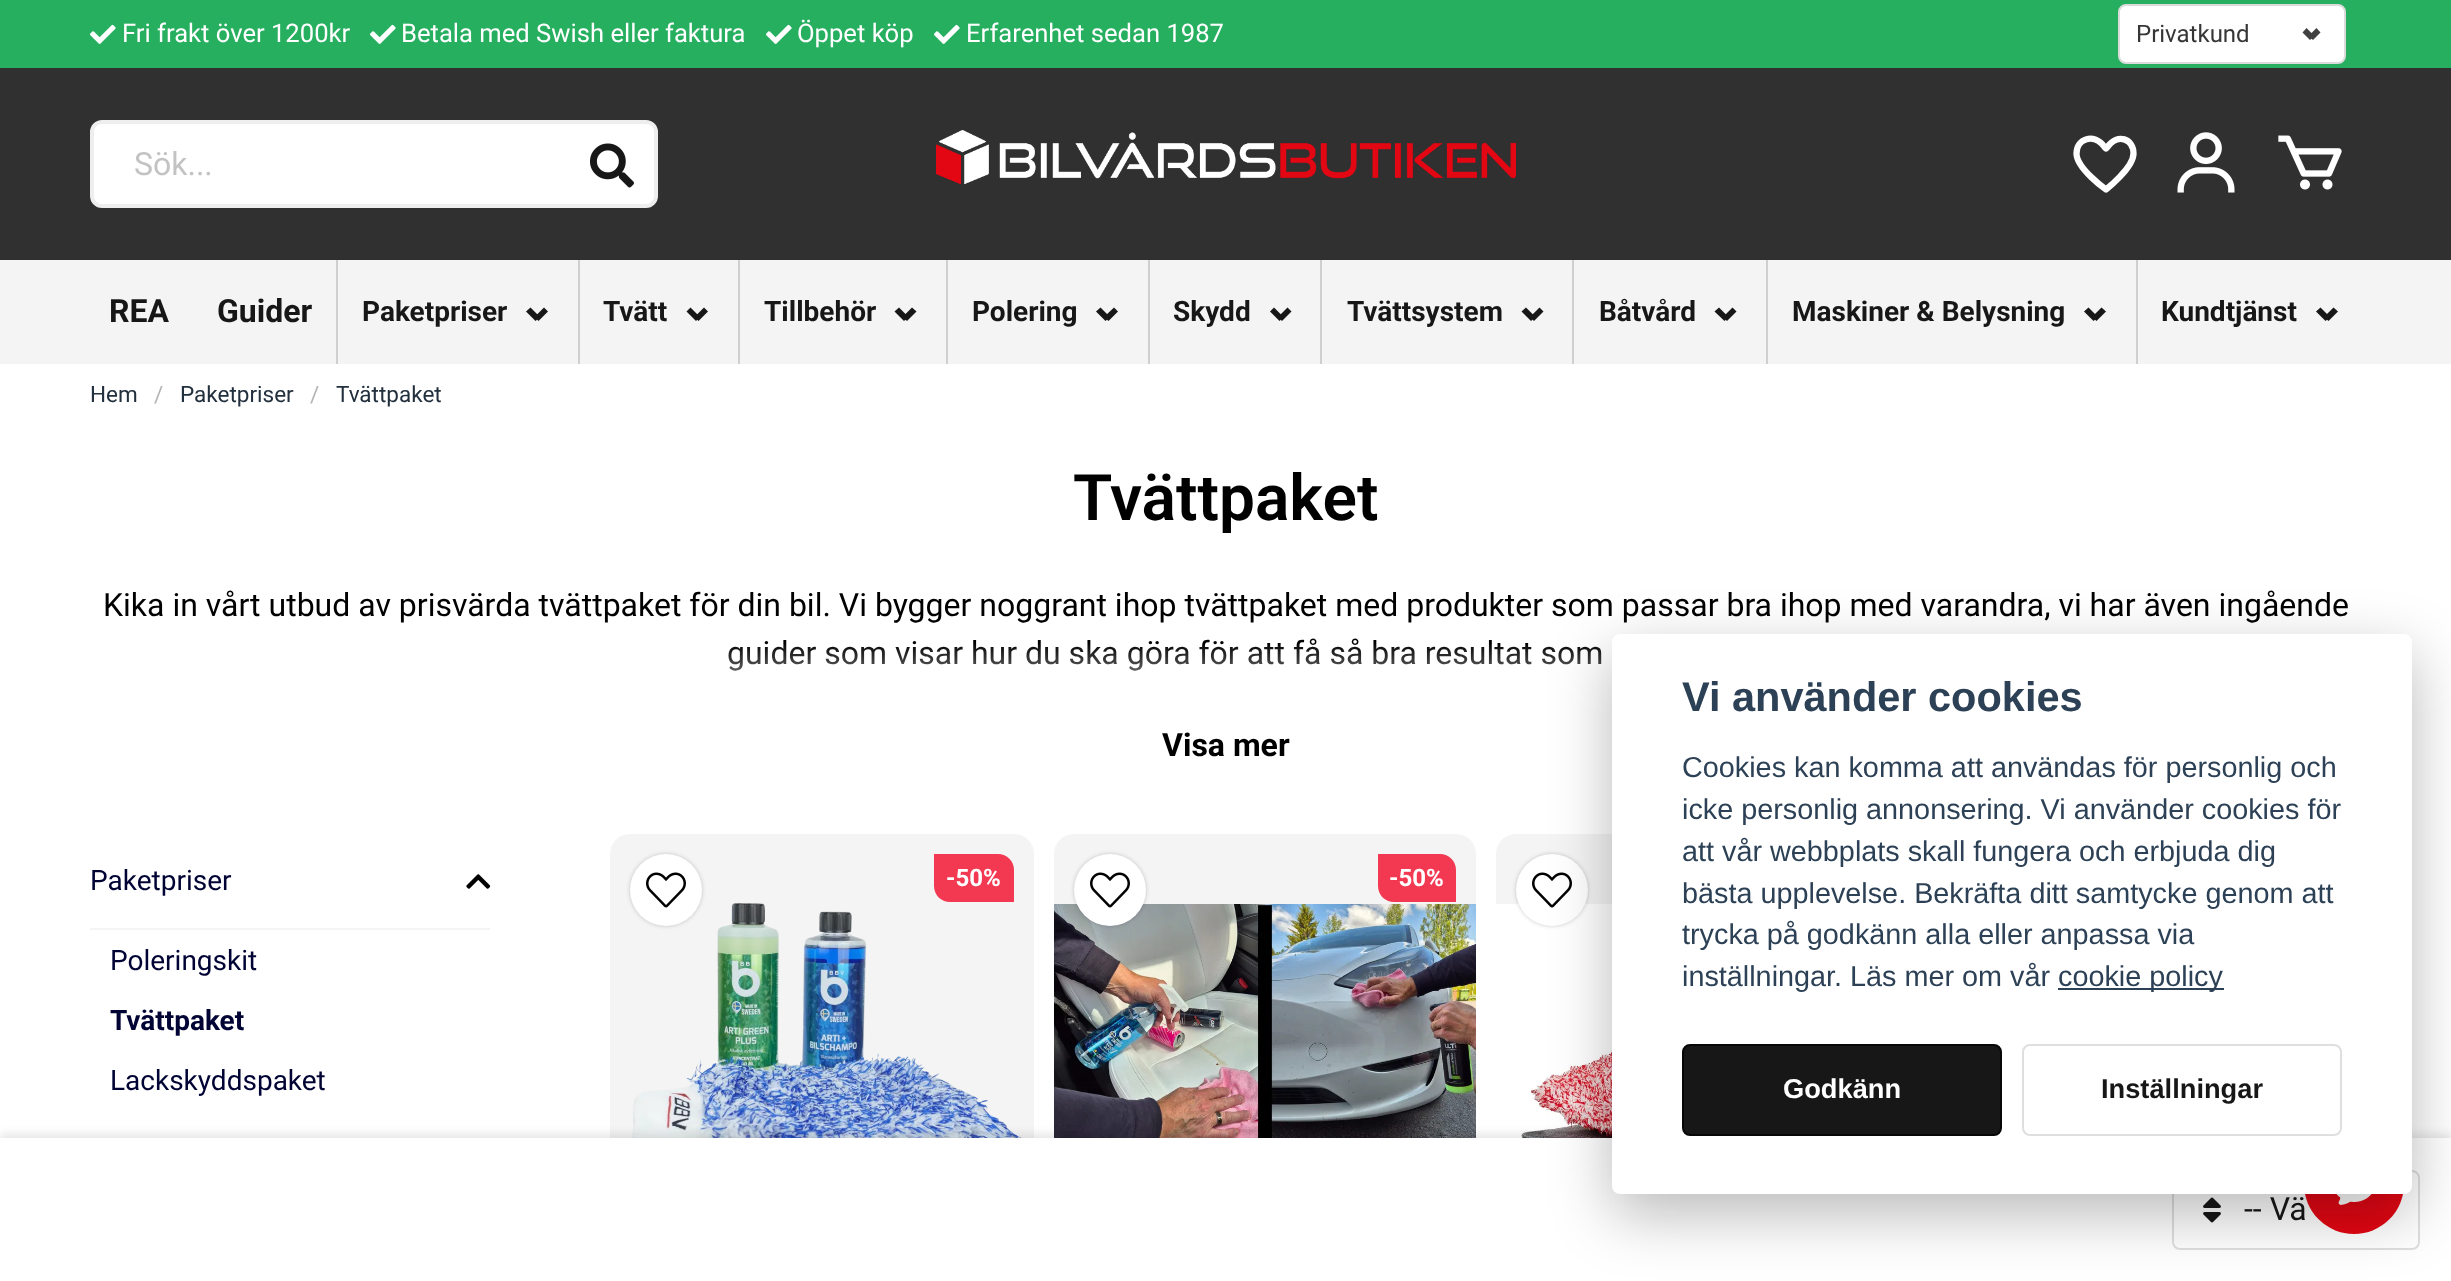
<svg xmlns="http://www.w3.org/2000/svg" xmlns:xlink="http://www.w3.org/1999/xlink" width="2451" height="1281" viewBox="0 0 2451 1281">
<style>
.cls-1{font:25.6px Roboto;fill:#ffffff}
.cls-2{font:24px Roboto;fill:#363636}
.cls-3{font:32px Roboto;fill:#c3c3c3}
.cls-4{font:bold 32px Roboto;fill:#171717}
.cls-5{font:bold 28px Roboto;fill:#171717}
.cls-6{font:22.5px Roboto;fill:#222f3d}
.cls-7{font:22.5px Roboto;fill:#b5b5b5}
.cls-8{font:600 64px Roboto;fill:#000000}
.cls-9{font:32px Roboto;fill:#000000}
.cls-10{font:bold 32px Roboto;fill:#000000}
.cls-11{font:28px Roboto;fill:#000333}
.cls-12{font:bold 28px Roboto;fill:#000333}
.cls-13{font:bold 24px Roboto;fill:#ffffff}
.cls-14{font:32px Roboto;fill:#171717}
.cls-15{font:bold 27.25px Liberation Sans;fill:#ffffff}
.cls-16{font:28.8px Liberation Sans;fill:#2d4156}
.cls-17{font:bold 41.5px Liberation Sans;fill:#2d4156}
.cls-18{font:bold 27.25px Liberation Sans;fill:#171717}
</style>
<defs>
<linearGradient id="g1" gradientUnits="userSpaceOnUse" x1="1226" y1="642" x2="1226" y2="722"><stop offset="0" stop-color="#ffffff" stop-opacity="0"/><stop offset="1" stop-color="#ffffff"/></linearGradient>
</defs>
<rect width="100%" height="100%" fill="#ffffff"/>
<rect fill="#303030" x="0" y="68" width="2451" height="192"/>
<rect fill="#27af60" x="0" y="0" width="2451" height="68"/>
<image xlink:href="image0.png" x="90" y="24" width="26" height="20"/>
<image xlink:href="image0.png" x="370" y="24" width="26" height="20"/>
<image xlink:href="image0.png" x="766" y="24" width="26" height="20"/>
<image xlink:href="image0.png" x="934" y="24" width="26" height="20"/>
<rect fill="#ffffff" stroke="#dbdbdb" stroke-width="2" x="2119" y="5" width="226" height="58" rx="7"/>
<path fill="#414141" d="M2308.5 36L2316.5 28L2320.5 32.5L2313 40Z"/>
<path fill="#414141" d="M2302.5 32.5L2306.5 28L2314.5 36L2310 40Z"/>
<rect fill="#ffffff" stroke="#eeeeee" stroke-width="4" x="92" y="122" width="564" height="84" rx="10"/>
<image xlink:href="image1.png" x="590" y="143" width="44" height="45"/>
<image xlink:href="image2.png" x="936" y="130" width="580" height="54"/>
<path fill="none" stroke="#ffffff" stroke-width="6.3" stroke-linecap="round" stroke-linejoin="round" d="M2104.5 147C2094 132.5 2076.5 138.5 2076.5 153.5C2076.5 168.5 2106 189.5 2106 189.5C2106 189.5 2133.5 168 2133.5 153.5C2133.5 139 2117.5 132.5 2107.5 147L2106 148.5Z"/>
<image xlink:href="image3.png" x="2177" y="132" width="58" height="61"/>
<image xlink:href="image4.png" x="2278" y="135" width="64" height="55"/>
<rect fill="#f4f4f4" x="0" y="260" width="2451" height="104"/>
<rect fill="#cfcfcf" x="336" y="260" width="2" height="104"/>
<path fill="#171717" d="M534.5 317L544 307.5L548 311.5L538.5 321Z"/>
<path fill="#171717" d="M526 311.5L530.5 307.5L540 317L535.5 321Z"/>
<rect fill="#cfcfcf" x="578" y="260" width="2" height="104"/>
<path fill="#171717" d="M694.5 317L704 307.5L708 311.5L698.5 321Z"/>
<path fill="#171717" d="M686.5 311.5L690.5 307.5L700 317L696 321Z"/>
<rect fill="#cfcfcf" x="738" y="260" width="2" height="104"/>
<path fill="#171717" d="M902.5 317L912 307.5L916.5 311.5L907 321Z"/>
<path fill="#171717" d="M894.5 311.5L899 307.5L908.5 317L904 321Z"/>
<rect fill="#cfcfcf" x="946" y="260" width="2" height="104"/>
<path fill="#171717" d="M1104 317L1114 307.5L1118 311.5L1108.5 321Z"/>
<path fill="#171717" d="M1096 311.5L1100.5 307.5L1110 317L1105.5 321Z"/>
<rect fill="#cfcfcf" x="1148" y="260" width="2" height="104"/>
<path fill="#171717" d="M1278 317L1287.5 307.5L1291.5 311.5L1282 321Z"/>
<path fill="#171717" d="M1270 311.5L1274 307.5L1283.5 317L1279.5 321Z"/>
<rect fill="#cfcfcf" x="1320" y="260" width="2" height="104"/>
<path fill="#171717" d="M1530 317L1539.5 307.5L1543.5 311.5L1534 321Z"/>
<path fill="#171717" d="M1521.5 311.5L1526 307.5L1535.5 317L1531 321Z"/>
<rect fill="#cfcfcf" x="1572" y="260" width="2" height="104"/>
<path fill="#171717" d="M1723 317L1732.5 307.5L1736.5 311.5L1727 321Z"/>
<path fill="#171717" d="M1714.5 311.5L1719 307.5L1728.5 317L1724.5 321Z"/>
<rect fill="#cfcfcf" x="1766" y="260" width="2" height="104"/>
<path fill="#171717" d="M2092 317L2101.5 307.5L2106 311.5L2096.5 321Z"/>
<path fill="#171717" d="M2084 311.5L2088.5 307.5L2098 317L2093.5 321Z"/>
<rect fill="#cfcfcf" x="2136" y="260" width="2" height="104"/>
<path fill="#171717" d="M2324 317L2333.5 307.5L2338 311.5L2328.5 321Z"/>
<path fill="#171717" d="M2316 311.5L2320.5 307.5L2330 317L2325.5 321Z"/>
<image xlink:href="image5.png" x="466" y="874" width="25" height="15"/>
<rect fill="#f4f4f4" x="90" y="928" width="400" height="2"/>
<rect fill="#f4f4f4" x="610" y="834" width="424" height="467" rx="20"/>
<image xlink:href="image7.png" x="632" y="903" width="390" height="235"/>
<rect fill="#000000" fill-opacity="0.2" filter="blur(2px)" x="630" y="854" width="72" height="72" rx="36"/>
<circle fill="#ffffff" cx="666" cy="890" r="36"/>
<image xlink:href="image6.png" x="646" y="872" width="40" height="36"/>
<path fill="#f33952" d="M934 854H998C1007 854 1014 861 1014 870V902H950C941 902 934 895 934 886Z"/>
<rect fill="#f4f4f4" x="1054" y="834" width="422" height="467" rx="20"/>
<image xlink:href="image8.png" x="1054" y="904" width="422" height="234"/>
<rect fill="#000000" fill-opacity="0.2" filter="blur(2px)" x="1074" y="854" width="72" height="72" rx="36"/>
<circle fill="#ffffff" cx="1110" cy="890" r="36"/>
<image xlink:href="image6.png" x="1090" y="872" width="40" height="36"/>
<path fill="#f33952" d="M1378 854H1440C1449 854 1456 861 1456 870V902H1394C1385 902 1378 895 1378 886Z"/>
<rect fill="#f4f4f4" x="1496" y="834" width="424" height="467" rx="20"/>
<image xlink:href="image9.png" x="1496" y="904" width="116" height="234"/>
<rect fill="#000000" fill-opacity="0.2" filter="blur(2px)" x="1516" y="854" width="72" height="72" rx="36"/>
<circle fill="#ffffff" cx="1552" cy="890" r="36"/>
<image xlink:href="image6.png" x="1532" y="872" width="40" height="36"/>
<rect fill="#000000" fill-opacity="0.1" filter="blur(5px)" x="0" y="1134" width="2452" height="144"/>
<rect fill="#ffffff" x="0" y="1138" width="2451" height="143"/>
<rect fill="none" stroke="#dfdfdf" stroke-width="2" x="2173" y="1171" width="246" height="78" rx="7"/>
<image xlink:href="image10.png" x="2203" y="1197" width="18" height="26"/>
<text class="cls-1" x="122" y="42">Fri frakt över 1200kr</text>
<text class="cls-1" x="401" y="42">Betala med Swish eller faktura</text>
<text class="cls-1" x="797" y="42">Öppet köp</text>
<text class="cls-1" x="966" y="42">Erfarenhet sedan 1987</text>
<text class="cls-2" x="2136" y="42">Privatkund</text>
<text class="cls-3" x="134" y="175">Sök...</text>
<text class="cls-4" x="109" y="322">REA</text>
<text class="cls-4" x="217" y="322">Guider</text>
<text class="cls-5" x="362" y="321">Paketpriser</text>
<text class="cls-5" x="603" y="321">Tvätt</text>
<text class="cls-5" x="764" y="321">Tillbehör</text>
<text class="cls-5" x="972" y="321">Polering</text>
<text class="cls-5" x="1173" y="321">Skydd</text>
<text class="cls-5" x="1347" y="321">Tvättsystem</text>
<text class="cls-5" x="1599" y="321">Båtvård</text>
<text class="cls-5" x="1792" y="321">Maskiner &amp; Belysning</text>
<text class="cls-5" x="2161" y="321">Kundtjänst</text>
<text class="cls-6" x="90" y="402">Hem</text>
<text class="cls-7" x="154" y="402">/</text>
<text class="cls-6" x="180" y="402">Paketpriser</text>
<text class="cls-7" x="310" y="402">/</text>
<text class="cls-6" x="336" y="402">Tvättpaket</text>
<text class="cls-8" x="1073" y="520">Tvättpaket</text>
<text class="cls-9" x="103" y="616">Kika in vårt utbud av prisvärda tvättpaket för din bil. Vi bygger noggrant ihop tvättpaket med produkter som passar bra ihop med varandra, vi har även ingående</text>
<text class="cls-9" x="727" y="664">guider som visar hur du ska göra för att få så bra resultat som</text>
<rect fill="url(#g1)" x="728" y="644" width="873" height="27"/>
<text class="cls-10" x="1162" y="756">Visa mer</text>
<text class="cls-11" x="90" y="890">Paketpriser</text>
<text class="cls-11" x="110" y="970">Poleringskit</text>
<text class="cls-12" x="110" y="1030">Tvättpaket</text>
<text class="cls-11" x="110" y="1090">Lackskyddspaket</text>
<text class="cls-13" x="946" y="886">-50%</text>
<text class="cls-13" x="1389" y="886">-50%</text>
<text class="cls-14" x="2244" y="1220">-- Vä</text>
<circle fill="#e30613" cx="2354" cy="1184" r="50"/>
<image xlink:href="image11.png" x="2336" y="1194" width="36" height="11"/>
<rect fill="#020203" fill-opacity="0.28" filter="blur(30px)" x="1612" y="654" width="800" height="560" rx="8"/>
<rect fill="#ffffff" x="1612" y="634" width="800" height="560" rx="8"/>
<rect fill="#171717" stroke="#070707" stroke-width="2" x="1683" y="1045" width="318" height="90" rx="7"/>
<text class="cls-15" x="1783" y="1098">Godkänn</text>
<rect fill="#2d4156" x="2058" y="988" width="166" height="2"/>
<text class="cls-16" x="2058" y="986">cookie policy</text>
<text class="cls-16" x="1682" y="986">inställningar. Läs mer om vår</text>
<text class="cls-16" x="1682" y="944">trycka på godkänn alla eller anpassa via</text>
<text class="cls-16" x="1682" y="903">bästa upplevelse. Bekräfta ditt samtycke genom att</text>
<text class="cls-16" x="1682" y="861">att vår webbplats skall fungera och erbjuda dig</text>
<text class="cls-16" x="1682" y="819">icke personlig annonsering. Vi använder cookies för</text>
<text class="cls-16" x="1682" y="777">Cookies kan komma att användas för personlig och</text>
<text class="cls-17" x="1682" y="711">Vi använder cookies</text>
<rect fill="none" stroke="#dfdfdf" stroke-width="2" x="2023" y="1045" width="318" height="90" rx="7"/>
<text class="cls-18" x="2101" y="1098">Inställningar</text>
</svg>
